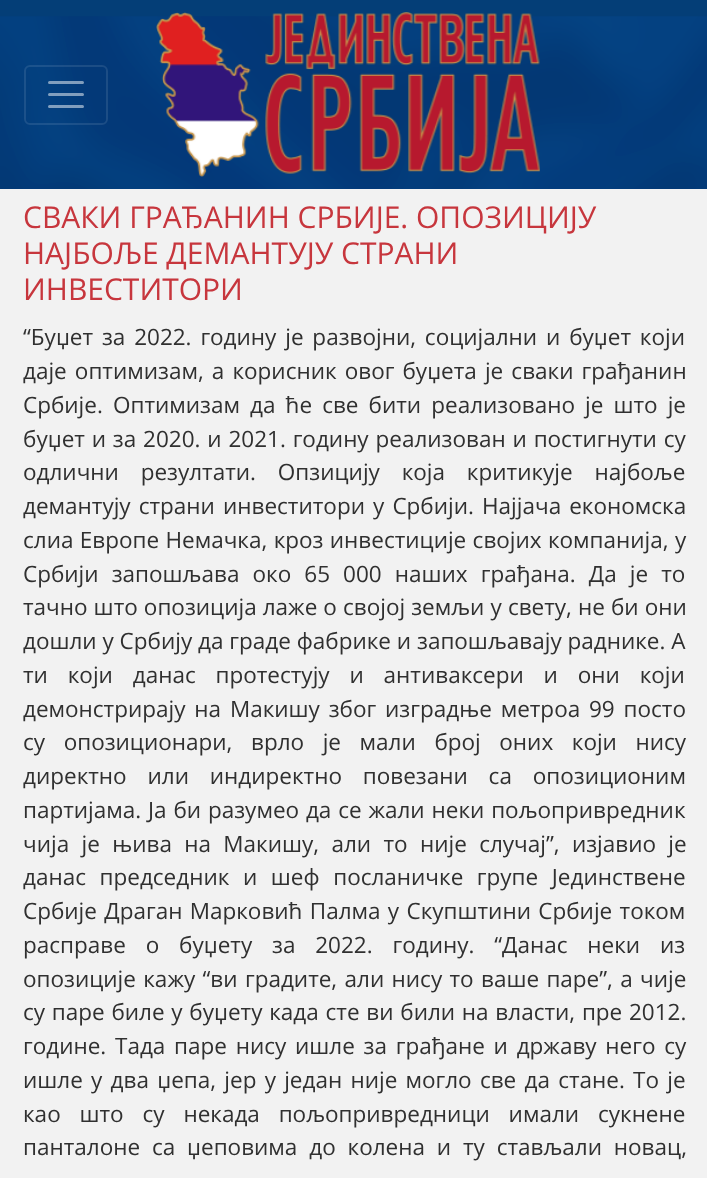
<svg xmlns="http://www.w3.org/2000/svg" xmlns:xlink="http://www.w3.org/1999/xlink" width="707" height="1178" viewBox="0 0 707 1178">
<style>
.cls-1{font:30px Open Sans;fill:#c7363d}
.cls-2{font:22.5px Open Sans;fill:#303030}
</style>
<rect width="100%" height="100%" fill="#f2f2f2"/>
<image xlink:href="image0.png" x="0" y="0" width="707" height="189"/>
<rect fill="none" stroke="#ffffff" stroke-opacity="0.1" stroke-width="2" x="25" y="66" width="82" height="58" rx="5"/>
<path fill="none" stroke="#ffffff" stroke-opacity="0.5" stroke-width="3" stroke-linecap="round" d="M49.5 82.5H82.5M49.5 94.5H82.5M49.5 106.5H82.5"/>
<image xlink:href="image1.png" x="156" y="12" width="384" height="165"/>
<text class="cls-1"><tspan x="23" y="228">СВАКИ ГРАЂАНИН СРБИЈЕ. ОПОЗИЦИЈУ</tspan><tspan x="23" y="264">НАЈБОЉЕ ДЕМАНТУЈУ СТРАНИ</tspan><tspan x="23" y="300">ИНВЕСТИТОРИ</tspan></text>
<text class="cls-2"><tspan x="23" y="345" word-spacing="3">“Буџет за 2022. годину је развојни, социјални и буџет који</tspan><tspan x="23" y="379" word-spacing="2.25">даје оптимизам, а корисник овог буџета је сваки грађанин</tspan><tspan x="23" y="413" word-spacing="4.25">Србије. Оптимизам да ће све бити реализовано је што је</tspan><tspan x="23" y="447" word-spacing="1">буџет и за 2020. и 2021. годину реализован и постигнути су</tspan><tspan x="23" y="480" word-spacing="16">одлични резултати. Опзицију која критикује најбоље</tspan><tspan x="23" y="514" word-spacing="2.25">демантују страни инвеститори у Србији. Најјача економска</tspan><tspan x="23" y="548" word-spacing="0.5">слиа Европе Немачка, кроз инвестиције својих компанија, у</tspan><tspan x="23" y="582" word-spacing="7.25">Србији запошљава око 65 000 наших грађана. Да је то</tspan><tspan x="23" y="615" word-spacing="0.25">тачно што опозиција лаже о својој земљи у свету, не би они</tspan><tspan x="23" y="649">дошли у Србију да граде фабрике и запошљавају раднике. А</tspan><tspan x="23" y="683" word-spacing="14">ти који данас протестују и антиваксери и они који</tspan><tspan x="23" y="717" word-spacing="3">демонстрирају на Макишу због изградње метроа 99 посто</tspan><tspan x="23" y="750" word-spacing="12.75">су опозиционари, врло је мали број оних који нису</tspan><tspan x="23" y="784" word-spacing="15">директно или индиректно повезани са опозиционим</tspan><tspan x="23" y="818" word-spacing="1">партијама. Ја би разумео да се жали неки пољопривредник</tspan><tspan x="23" y="852" word-spacing="6.5">чија је њива на Макишу, али то није случај”, изјавио је</tspan><tspan x="23" y="885" word-spacing="7.75">данас председник и шеф посланичке групе Јединствене</tspan><tspan x="23" y="919" word-spacing="1.5">Србије Драган Марковић Палма у Скупштини Србије током</tspan><tspan x="23" y="953" word-spacing="14">расправе о буџету за 2022. годину. “Данас неки из</tspan><tspan x="23" y="987" word-spacing="1.5">опозиције кажу “ви градите, али нису то ваше паре”, а чије</tspan><tspan x="23" y="1020" word-spacing="0.9">су паре биле у буџету када сте ви били на власти, пре 2012.</tspan><tspan x="23" y="1054" word-spacing="2.9">године. Тада паре нису ишле за грађане и државу него су</tspan><tspan x="23" y="1088" word-spacing="2.4">ишле у два џепа, јер у један није могло све да стане. То је</tspan><tspan x="23" y="1122" word-spacing="13">као што су некада пољопривредници имали сукнене</tspan><tspan x="23" y="1155" word-spacing="6">панталоне са џеповима до колена и ту стављали новац,</tspan></text>
</svg>
